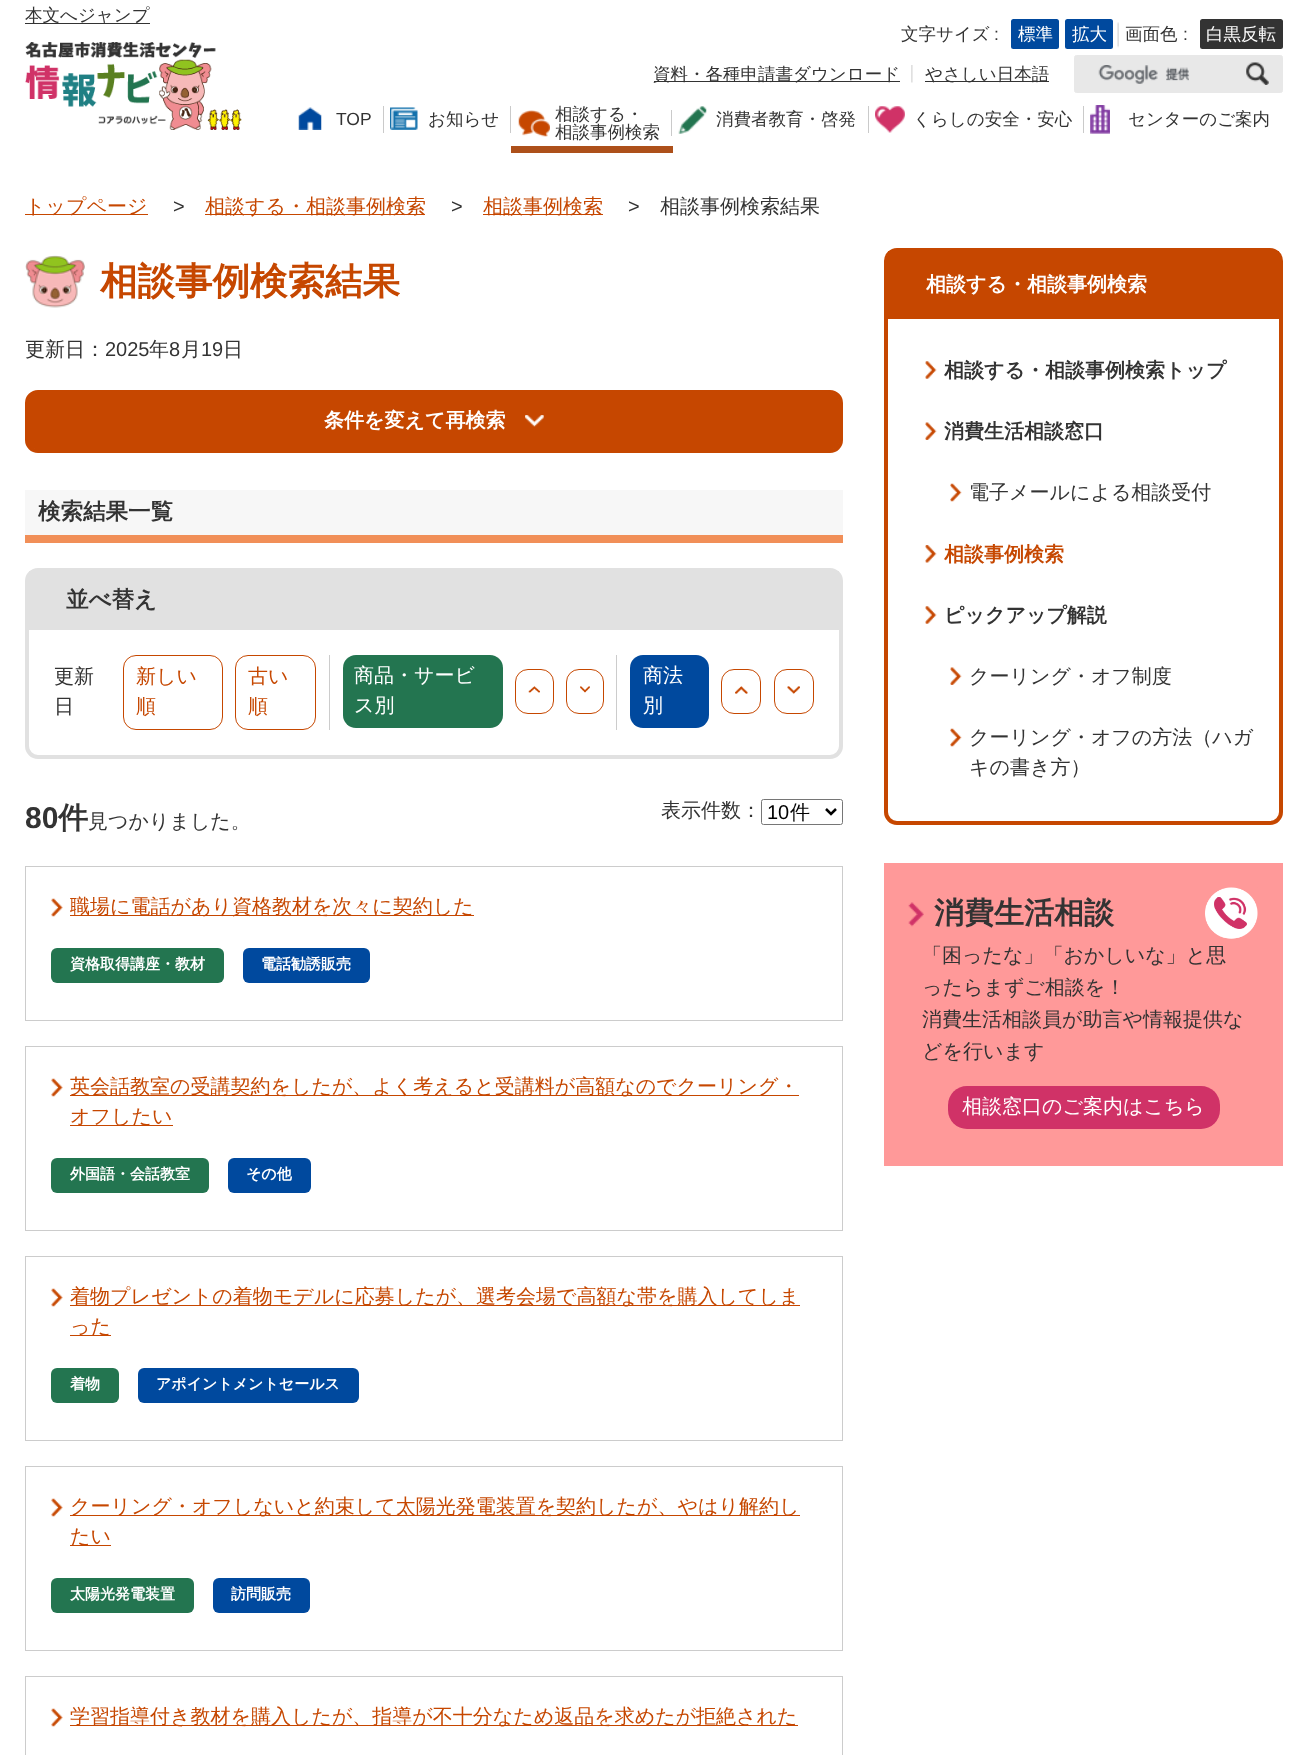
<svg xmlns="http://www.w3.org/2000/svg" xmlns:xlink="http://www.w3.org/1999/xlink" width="1307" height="1755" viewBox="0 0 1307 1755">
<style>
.cls-1{font:500 17.5px WenQuanYi Zen Hei;fill:#333333}
.cls-2{font:17.5px Liberation Sans;fill:#333333}
.cls-3{font:500 17.5px WenQuanYi Zen Hei;fill:#ffffff}
.cls-4{font:500 20px WenQuanYi Zen Hei;fill:#c64700}
.cls-5{font:20px Liberation Sans;fill:#333333}
.cls-6{font:500 20px WenQuanYi Zen Hei;fill:#333333}
.cls-7{font:bold 37.5px WenQuanYi Zen Hei;fill:#c64700}
.cls-8{font:bold 20px WenQuanYi Zen Hei;fill:#ffffff}
.cls-9{font:bold 22.5px WenQuanYi Zen Hei;fill:#333333}
.cls-10{font:500 20px WenQuanYi Zen Hei;fill:#ffffff}
.cls-11{font:bold 30px Liberation Sans;fill:#333333}
.cls-12{font:bold 30px WenQuanYi Zen Hei;fill:#333333}
.cls-13{font:20px Liberation Sans;fill:#000000}
.cls-14{font:500 20px WenQuanYi Zen Hei;fill:#000000}
.cls-15{font:bold 15px WenQuanYi Zen Hei;fill:#ffffff}
.cls-16{font:bold 20px WenQuanYi Zen Hei;fill:#333333}
.cls-17{font:bold 20px WenQuanYi Zen Hei;fill:#c64700}
</style>
<rect width="100%" height="100%" fill="#ffffff"/>
<rect fill="#333333" x="25" y="23" width="125" height="1"/>
<image xlink:href="image0.png" x="25" y="42" width="217" height="88"/>
<image xlink:href="image1.png" x="1117" y="22" width="2" height="26"/>
<rect fill="#00499e" x="1011" y="19" width="48" height="30" rx="2.5"/>
<rect fill="#00499e" x="1065" y="19" width="48" height="30" rx="2.5"/>
<rect fill="#333333" x="1200" y="19" width="83" height="30" rx="2.5"/>
<image xlink:href="image2.png" x="911" y="65" width="2" height="18"/>
<rect fill="#333333" x="654" y="81" width="246" height="1"/>
<rect fill="#333333" x="925" y="81" width="124" height="1"/>
<rect fill="#e8e8e8" stroke="#e8e8e8" x="1074.5" y="55.5" width="208" height="37" rx="2"/>
<image xlink:href="image3.png" x="1098" y="65" width="92" height="19"/>
<image xlink:href="image4.png" x="1246" y="62" width="23" height="23"/>
<image xlink:href="image5.png" x="298" y="107" width="24" height="23"/>
<rect fill="#cacaca" x="383" y="106" width="1" height="27"/>
<image xlink:href="image6.png" x="390" y="107" width="28" height="23"/>
<rect fill="#cacaca" x="510" y="106" width="1" height="27"/>
<rect fill="#ad501a" x="511" y="146" width="162" height="7"/>
<image xlink:href="image7.png" x="518" y="110" width="32" height="27"/>
<rect fill="#cacaca" x="671" y="110" width="1" height="26"/>
<image xlink:href="image8.png" x="678" y="106" width="29" height="28"/>
<rect fill="#cacaca" x="868" y="106" width="1" height="27"/>
<image xlink:href="image9.png" x="875" y="106" width="30" height="27"/>
<rect fill="#cacaca" x="1083" y="106" width="1" height="27"/>
<image xlink:href="image10.png" x="1090" y="105" width="20" height="29"/>
<rect fill="#c64700" x="25" y="214" width="123" height="1"/>
<rect fill="#c64700" x="205" y="214" width="220" height="1"/>
<rect fill="#c64700" x="483" y="214" width="120" height="1"/>
<image xlink:href="image11.png" x="25" y="255" width="60" height="53"/>
<rect fill="none" stroke="#c64700" stroke-width="4" x="27" y="392" width="814" height="59" rx="11"/>
<rect fill="#c64700" x="29" y="394" width="810" height="55" rx="6"/>
<image xlink:href="image12.png" x="525" y="415" width="19" height="12"/>
<rect fill="#f7f7f7" x="25" y="490" width="818" height="45"/>
<rect fill="#f18f58" x="25" y="535" width="818" height="8"/>
<rect fill="none" stroke="#e1e1e1" stroke-width="4" x="27" y="570" width="814" height="187" rx="11"/>
<rect fill="#e1e1e1" x="29" y="571" width="810" height="59"/>
<rect fill="#cccccc" x="329" y="655" width="1" height="75"/>
<rect fill="none" stroke="#c64700" x="123.5" y="655.5" width="99" height="74" rx="12.5"/>
<rect fill="none" stroke="#c64700" x="235.5" y="655.5" width="80" height="74" rx="12.5"/>
<rect fill="#cccccc" x="616" y="655" width="1" height="75"/>
<rect fill="#237550" x="343" y="655" width="160" height="73" rx="13"/>
<rect fill="none" stroke="#c64700" x="515.5" y="669.5" width="38" height="44" rx="12.5"/>
<image xlink:href="image13.png" x="528" y="686" width="12" height="7"/>
<rect fill="none" stroke="#c64700" x="566.5" y="669.5" width="37" height="44" rx="12.5"/>
<image xlink:href="image14.png" x="580" y="686" width="10" height="7"/>
<rect fill="#00499e" x="630" y="655" width="79" height="73" rx="13"/>
<rect fill="none" stroke="#c64700" x="721.5" y="669.5" width="39" height="44" rx="12.5"/>
<image xlink:href="image15.png" x="735" y="686" width="13" height="8"/>
<rect fill="none" stroke="#c64700" x="774.5" y="669.5" width="39" height="44" rx="12.5"/>
<image xlink:href="image16.png" x="787" y="686" width="13" height="8"/>
<rect fill="none" stroke="#767676" x="761.5" y="799.5" width="81" height="25" rx="2"/>
<path fill="none" stroke="#000000" stroke-width="2.5" d="M826 809L831 814L836 809"/>
<rect fill="none" stroke="#cccccc" x="25.5" y="866.5" width="817" height="154"/>
<image xlink:href="image17.png" x="51" y="898" width="12" height="19"/>
<rect fill="#c64700" x="70" y="915" width="404" height="1"/>
<rect fill="#237550" x="51" y="948" width="173" height="35" rx="6"/>
<rect fill="#00499e" x="243" y="948" width="127" height="35" rx="6"/>
<rect fill="none" stroke="#cccccc" x="25.5" y="1046.5" width="817" height="184"/>
<image xlink:href="image17.png" x="51" y="1078" width="12" height="19"/>
<rect fill="#c64700" x="70" y="1095" width="729" height="1"/>
<rect fill="#c64700" x="70" y="1125" width="103" height="1"/>
<rect fill="#237550" x="51" y="1158" width="158" height="35" rx="6"/>
<rect fill="#00499e" x="228" y="1158" width="83" height="35" rx="6"/>
<rect fill="none" stroke="#cccccc" x="25.5" y="1256.5" width="817" height="184"/>
<image xlink:href="image17.png" x="51" y="1288" width="12" height="19"/>
<rect fill="#c64700" x="70" y="1305" width="730" height="1"/>
<rect fill="#c64700" x="70" y="1335" width="41" height="1"/>
<rect fill="#237550" x="51" y="1368" width="68" height="35" rx="6"/>
<rect fill="#00499e" x="138" y="1368" width="221" height="35" rx="6"/>
<rect fill="none" stroke="#cccccc" x="25.5" y="1466.5" width="817" height="184"/>
<image xlink:href="image17.png" x="51" y="1498" width="12" height="19"/>
<rect fill="#c64700" x="70" y="1515" width="730" height="1"/>
<rect fill="#c64700" x="70" y="1545" width="41" height="1"/>
<rect fill="#237550" x="51" y="1578" width="143" height="35" rx="6"/>
<rect fill="#00499e" x="213" y="1578" width="97" height="35" rx="6"/>
<rect fill="none" stroke="#cccccc" x="25.5" y="1676.5" width="817" height="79"/>
<image xlink:href="image17.png" x="51" y="1708" width="12" height="19"/>
<rect fill="#c64700" x="70" y="1725" width="728" height="1"/>
<rect fill="none" stroke="#c64700" stroke-width="4" x="886" y="250" width="395" height="573" rx="11"/>
<rect fill="#c64700" x="888" y="251" width="391" height="68"/>
<image xlink:href="image18.png" x="925" y="361" width="12" height="18"/>
<image xlink:href="image19.png" x="925" y="422" width="12" height="18"/>
<image xlink:href="image20.png" x="950" y="483" width="12" height="19"/>
<image xlink:href="image21.png" x="925" y="545" width="12" height="18"/>
<image xlink:href="image18.png" x="925" y="606" width="12" height="18"/>
<image xlink:href="image19.png" x="950" y="667" width="12" height="18"/>
<image xlink:href="image20.png" x="950" y="728" width="12" height="19"/>
<rect fill="#ff9999" x="884" y="863" width="399" height="303"/>
<image xlink:href="image22.png" x="908" y="902" width="16" height="25"/>
<image xlink:href="image23.png" x="1205" y="887" width="53" height="52"/>
<rect fill="#d03267" x="948" y="1086" width="272" height="43" rx="19"/>
<text class="cls-1" x="25" y="21">本文へジャンプ</text>
<text class="cls-1" x="901" y="40">文字サイズ</text>
<text class="cls-2" x="994" y="40">:</text>
<text class="cls-3" x="1018" y="40">標準</text>
<text class="cls-3" x="1072" y="40">拡大</text>
<text class="cls-1" x="1125" y="40">画面色</text>
<text class="cls-2" x="1183" y="40">:</text>
<text class="cls-3" x="1206" y="40">白黒反転</text>
<text class="cls-1" x="653" y="80">資料・各種申請書ダウンロード</text>
<text class="cls-1" x="925" y="80">やさしい日本語</text>
<text class="cls-2" x="336" y="125">TOP</text>
<text class="cls-1" x="428" y="125">お知らせ</text>
<text class="cls-1"><tspan x="555" y="120">相談する・</tspan><tspan x="555" y="138">相談事例検索</tspan></text>
<text class="cls-1" x="716" y="125">消費者教育・啓発</text>
<text class="cls-1" x="913" y="125">くらしの安全・安心</text>
<text class="cls-1" x="1128" y="125">センターのご案内</text>
<text class="cls-4" x="25" y="213">トップページ</text>
<text class="cls-5" x="173" y="213">&gt;</text>
<text class="cls-4" x="205" y="213">相談する・相談事例検索</text>
<text class="cls-5" x="451" y="213">&gt;</text>
<text class="cls-4" x="483" y="213">相談事例検索</text>
<text class="cls-5" x="628" y="213">&gt;</text>
<text class="cls-6" x="660" y="213">相談事例検索結果</text>
<text class="cls-7" x="100" y="294">相談事例検索結果</text>
<text class="cls-6" x="25" y="356">更新日：</text>
<text class="cls-5" x="105" y="356">2025</text>
<text class="cls-6" x="149" y="356">年</text>
<text class="cls-5" x="169" y="356">8</text>
<text class="cls-6" x="181" y="356">月</text>
<text class="cls-5" x="201" y="356">19</text>
<text class="cls-6" x="223" y="356">日</text>
<text class="cls-8" x="324" y="427">条件を変えて再検索</text>
<text class="cls-9" x="38" y="519">検索結果一覧</text>
<text class="cls-9" x="66" y="607">並べ替え</text>
<text class="cls-6"><tspan x="54" y="683">更新</tspan><tspan x="54" y="713">日</tspan></text>
<text class="cls-4"><tspan x="136" y="683">新しい</tspan><tspan x="136" y="713">順</tspan></text>
<text class="cls-4"><tspan x="248" y="683">古い</tspan><tspan x="248" y="713">順</tspan></text>
<text class="cls-10"><tspan x="354" y="682">商品・サービ</tspan><tspan x="354" y="712">ス別</tspan></text>
<text class="cls-10"><tspan x="643" y="682">商法</tspan><tspan x="643" y="712">別</tspan></text>
<text class="cls-11" x="25" y="828">80</text>
<text class="cls-12" x="58" y="828">件</text>
<text class="cls-6" x="88" y="828">見つかりました。</text>
<text class="cls-6" x="661" y="817">表示件数：</text>
<text class="cls-13" x="767" y="819">10</text>
<text class="cls-14" x="790" y="819">件</text>
<text class="cls-4" x="70" y="913">職場に電話があり資格教材を次々に契約した</text>
<text class="cls-15" x="70" y="969">資格取得講座・教材</text>
<text class="cls-15" x="261" y="969">電話勧誘販売</text>
<text class="cls-4"><tspan x="70" y="1093">英会話教室の受講契約をしたが、よく考えると受講料が高額なのでクーリング・</tspan><tspan x="70" y="1123">オフしたい</tspan></text>
<text class="cls-15" x="70" y="1179">外国語・会話教室</text>
<text class="cls-15" x="246" y="1179">その他</text>
<text class="cls-4"><tspan x="70" y="1303">着物プレゼントの着物モデルに応募したが、選考会場で高額な帯を購入してしま</tspan><tspan x="70" y="1333">った</tspan></text>
<text class="cls-15" x="70" y="1389">着物</text>
<text class="cls-15" x="156" y="1389">アポイントメントセールス</text>
<text class="cls-4"><tspan x="70" y="1513">クーリング・オフしないと約束して太陽光発電装置を契約したが、やはり解約し</tspan><tspan x="70" y="1543">たい</tspan></text>
<text class="cls-15" x="70" y="1599">太陽光発電装置</text>
<text class="cls-15" x="231" y="1599">訪問販売</text>
<text class="cls-4" x="70" y="1723">学習指導付き教材を購入したが、指導が不十分なため返品を求めたが拒絶された</text>
<text class="cls-8" x="926" y="291">相談する・相談事例検索</text>
<text class="cls-16" x="944" y="377">相談する・相談事例検索トップ</text>
<text class="cls-16" x="944" y="438">消費生活相談窓口</text>
<text class="cls-6" x="969" y="499">電子メールによる相談受付</text>
<text class="cls-17" x="944" y="561">相談事例検索</text>
<text class="cls-16" x="944" y="622">ピックアップ解説</text>
<text class="cls-6" x="969" y="683">クーリング・オフ制度</text>
<text class="cls-6"><tspan x="969" y="744">クーリング・オフの方法（ハガ</tspan><tspan x="969" y="774">キの書き方）</tspan></text>
<text class="cls-12" x="934" y="923">消費生活相談</text>
<text class="cls-6"><tspan x="922" y="962">「困ったな」「おかしいな」と思</tspan><tspan x="922" y="994">ったらまずご相談を！</tspan><tspan x="922" y="1026">消費生活相談員が助言や情報提供な</tspan><tspan x="922" y="1058">どを行います</tspan></text>
<text class="cls-10" x="962" y="1113">相談窓口のご案内はこちら</text>
</svg>
